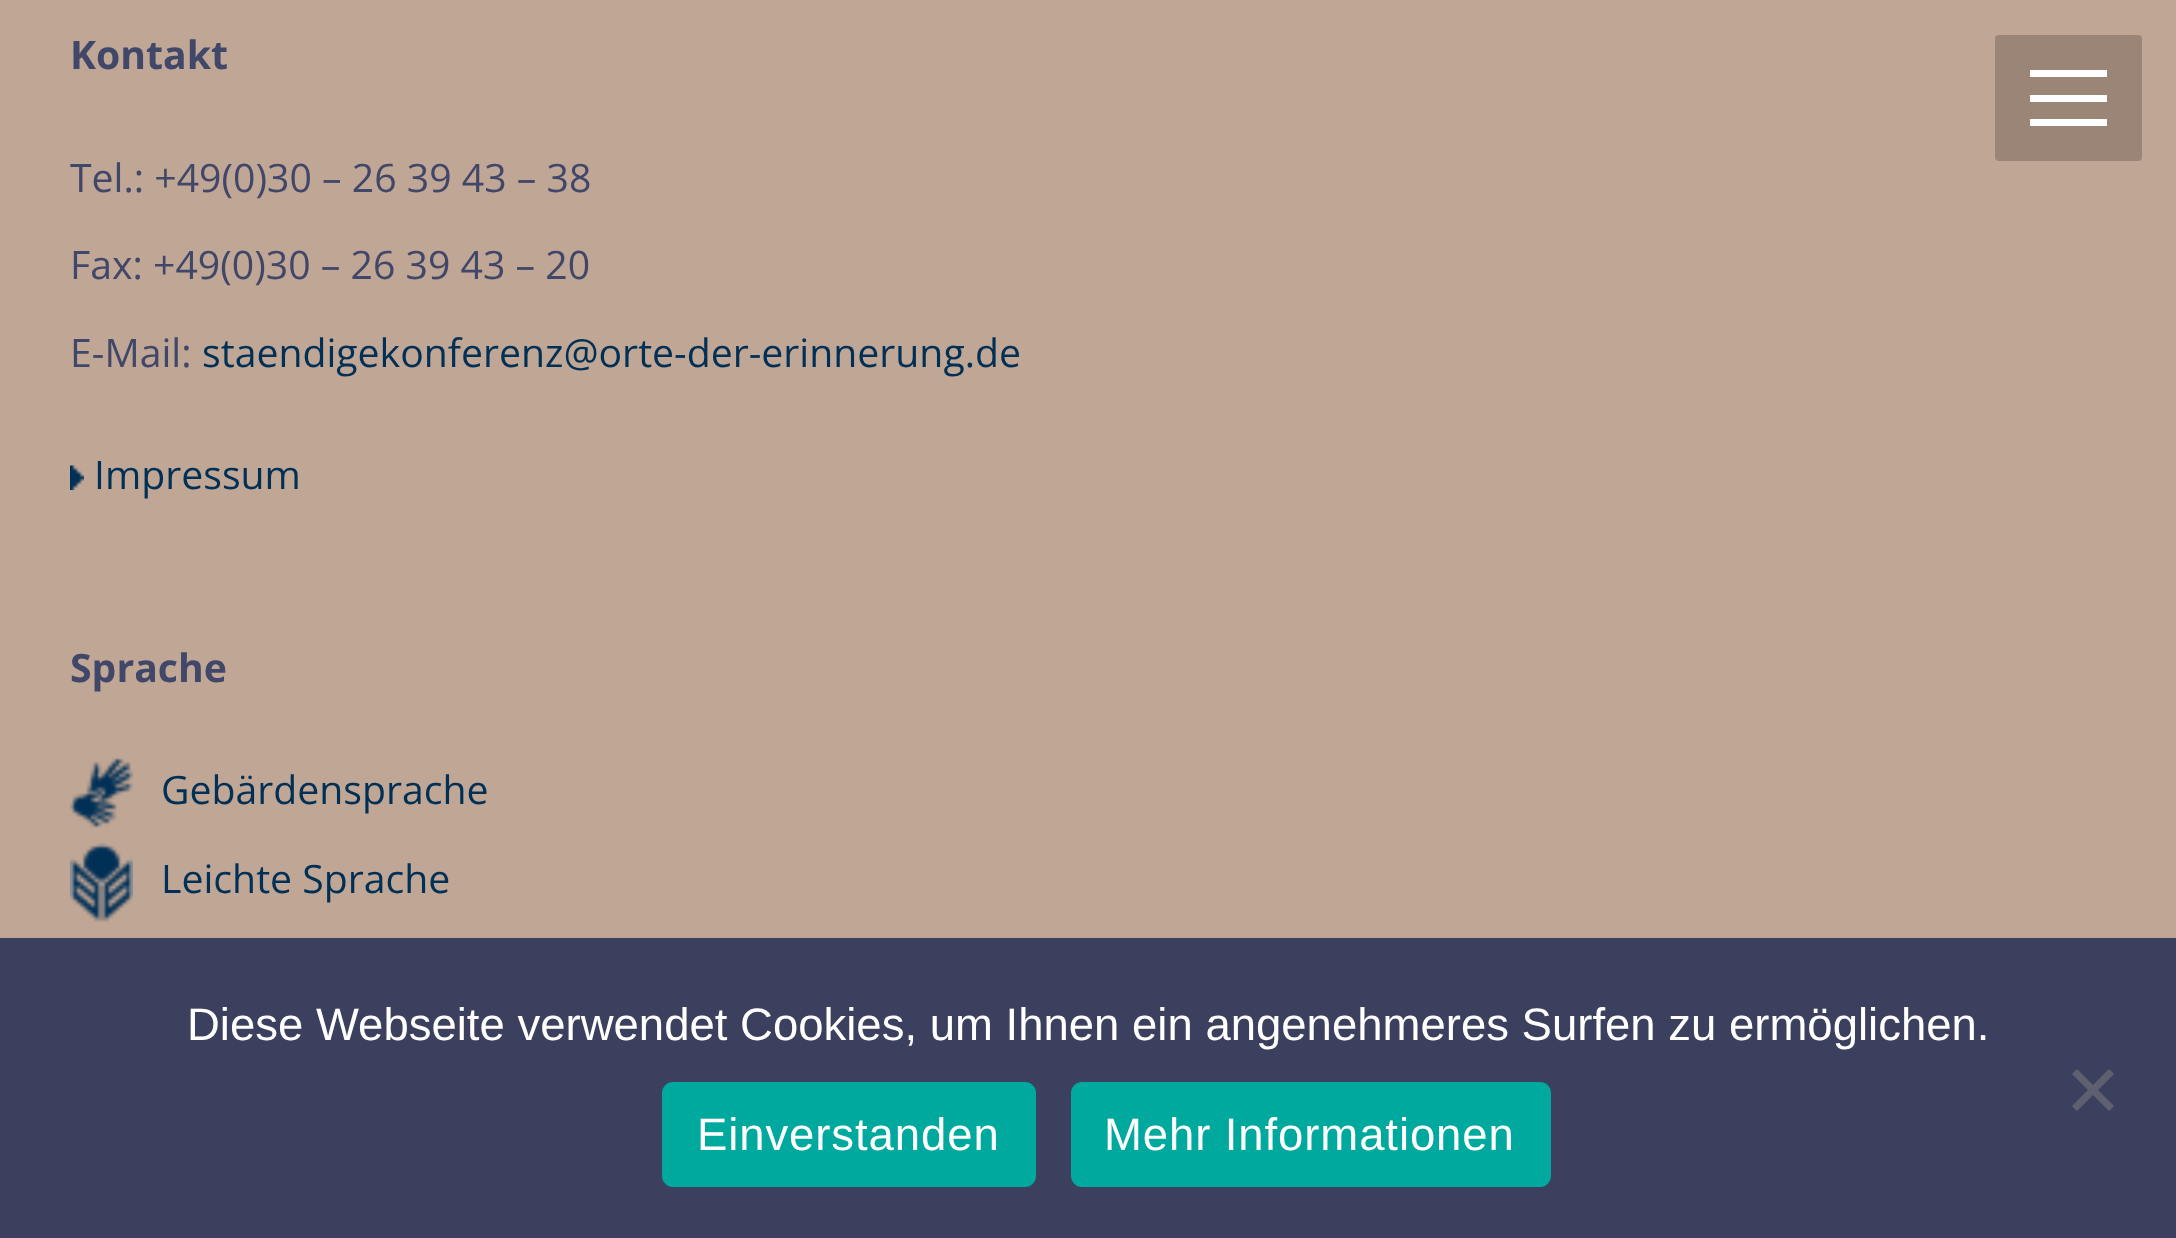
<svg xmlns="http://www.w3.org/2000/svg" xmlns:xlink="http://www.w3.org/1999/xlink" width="2176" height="1238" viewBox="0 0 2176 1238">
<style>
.cls-1{font:bold 39.2px Open Sans;fill:#414769}
.cls-2{font:39.2px Open Sans;fill:#414769}
.cls-3{font:39.2px Open Sans;fill:#003056}
.cls-4{font:45.5px Liberation Sans;fill:#ffffff}
.cls-5{font:45.5px Liberation Sans;letter-spacing:0.9px;fill:#ffffff}
</style>
<rect width="100%" height="100%" fill="#c0a695"/>
<image xlink:href="image0.png" x="70" y="465" width="14" height="25"/>
<image xlink:href="image1.png" x="70" y="757" width="63" height="72"/>
<image xlink:href="image2.png" x="70" y="843" width="63" height="79"/>
<rect fill="#9a8577" x="1995" y="35" width="147" height="126" rx="4"/>
<rect fill="#ffffff" x="2030" y="70" width="77" height="7"/>
<rect fill="#ffffff" x="2030" y="95" width="77" height="7"/>
<rect fill="#ffffff" x="2030" y="119" width="77" height="7"/>
<rect fill="#3c405f" x="0" y="938" width="2176" height="300"/>
<path fill="#5e6070" d="M2109 1069L2114 1074L2077 1111L2072 1106Z"/>
<path fill="#5e6070" d="M2072 1074L2077 1069L2114 1106L2109 1111Z"/>
<rect fill="#00a99d" x="662" y="1082" width="374" height="105" rx="11"/>
<rect fill="#00a99d" x="1071" y="1082" width="480" height="105" rx="11"/>
<text class="cls-1" x="70" y="69">Kontakt</text>
<text class="cls-2" x="70" y="192">Tel.: +49(0)30 – 26 39 43 – 38</text>
<text class="cls-2" x="70" y="279">Fax: +49(0)30 – 26 39 43 – 20</text>
<text class="cls-2" x="70" y="367">E-Mail:</text>
<text class="cls-3" x="202" y="367">staendigekonferenz@orte-der-erinnerung.de</text>
<text class="cls-3" x="94" y="489">Impressum</text>
<text class="cls-1" x="70" y="682">Sprache</text>
<text class="cls-3" x="161" y="804">Gebärdensprache</text>
<text class="cls-3" x="161" y="893">Leichte Sprache</text>
<text class="cls-4" x="187" y="1040">Diese Webseite verwendet Cookies, um Ihnen ein angenehmeres Surfen zu ermöglichen.</text>
<text class="cls-5" x="697" y="1150">Einverstanden</text>
<text class="cls-5" x="1104" y="1150">Mehr Informationen</text>
</svg>
